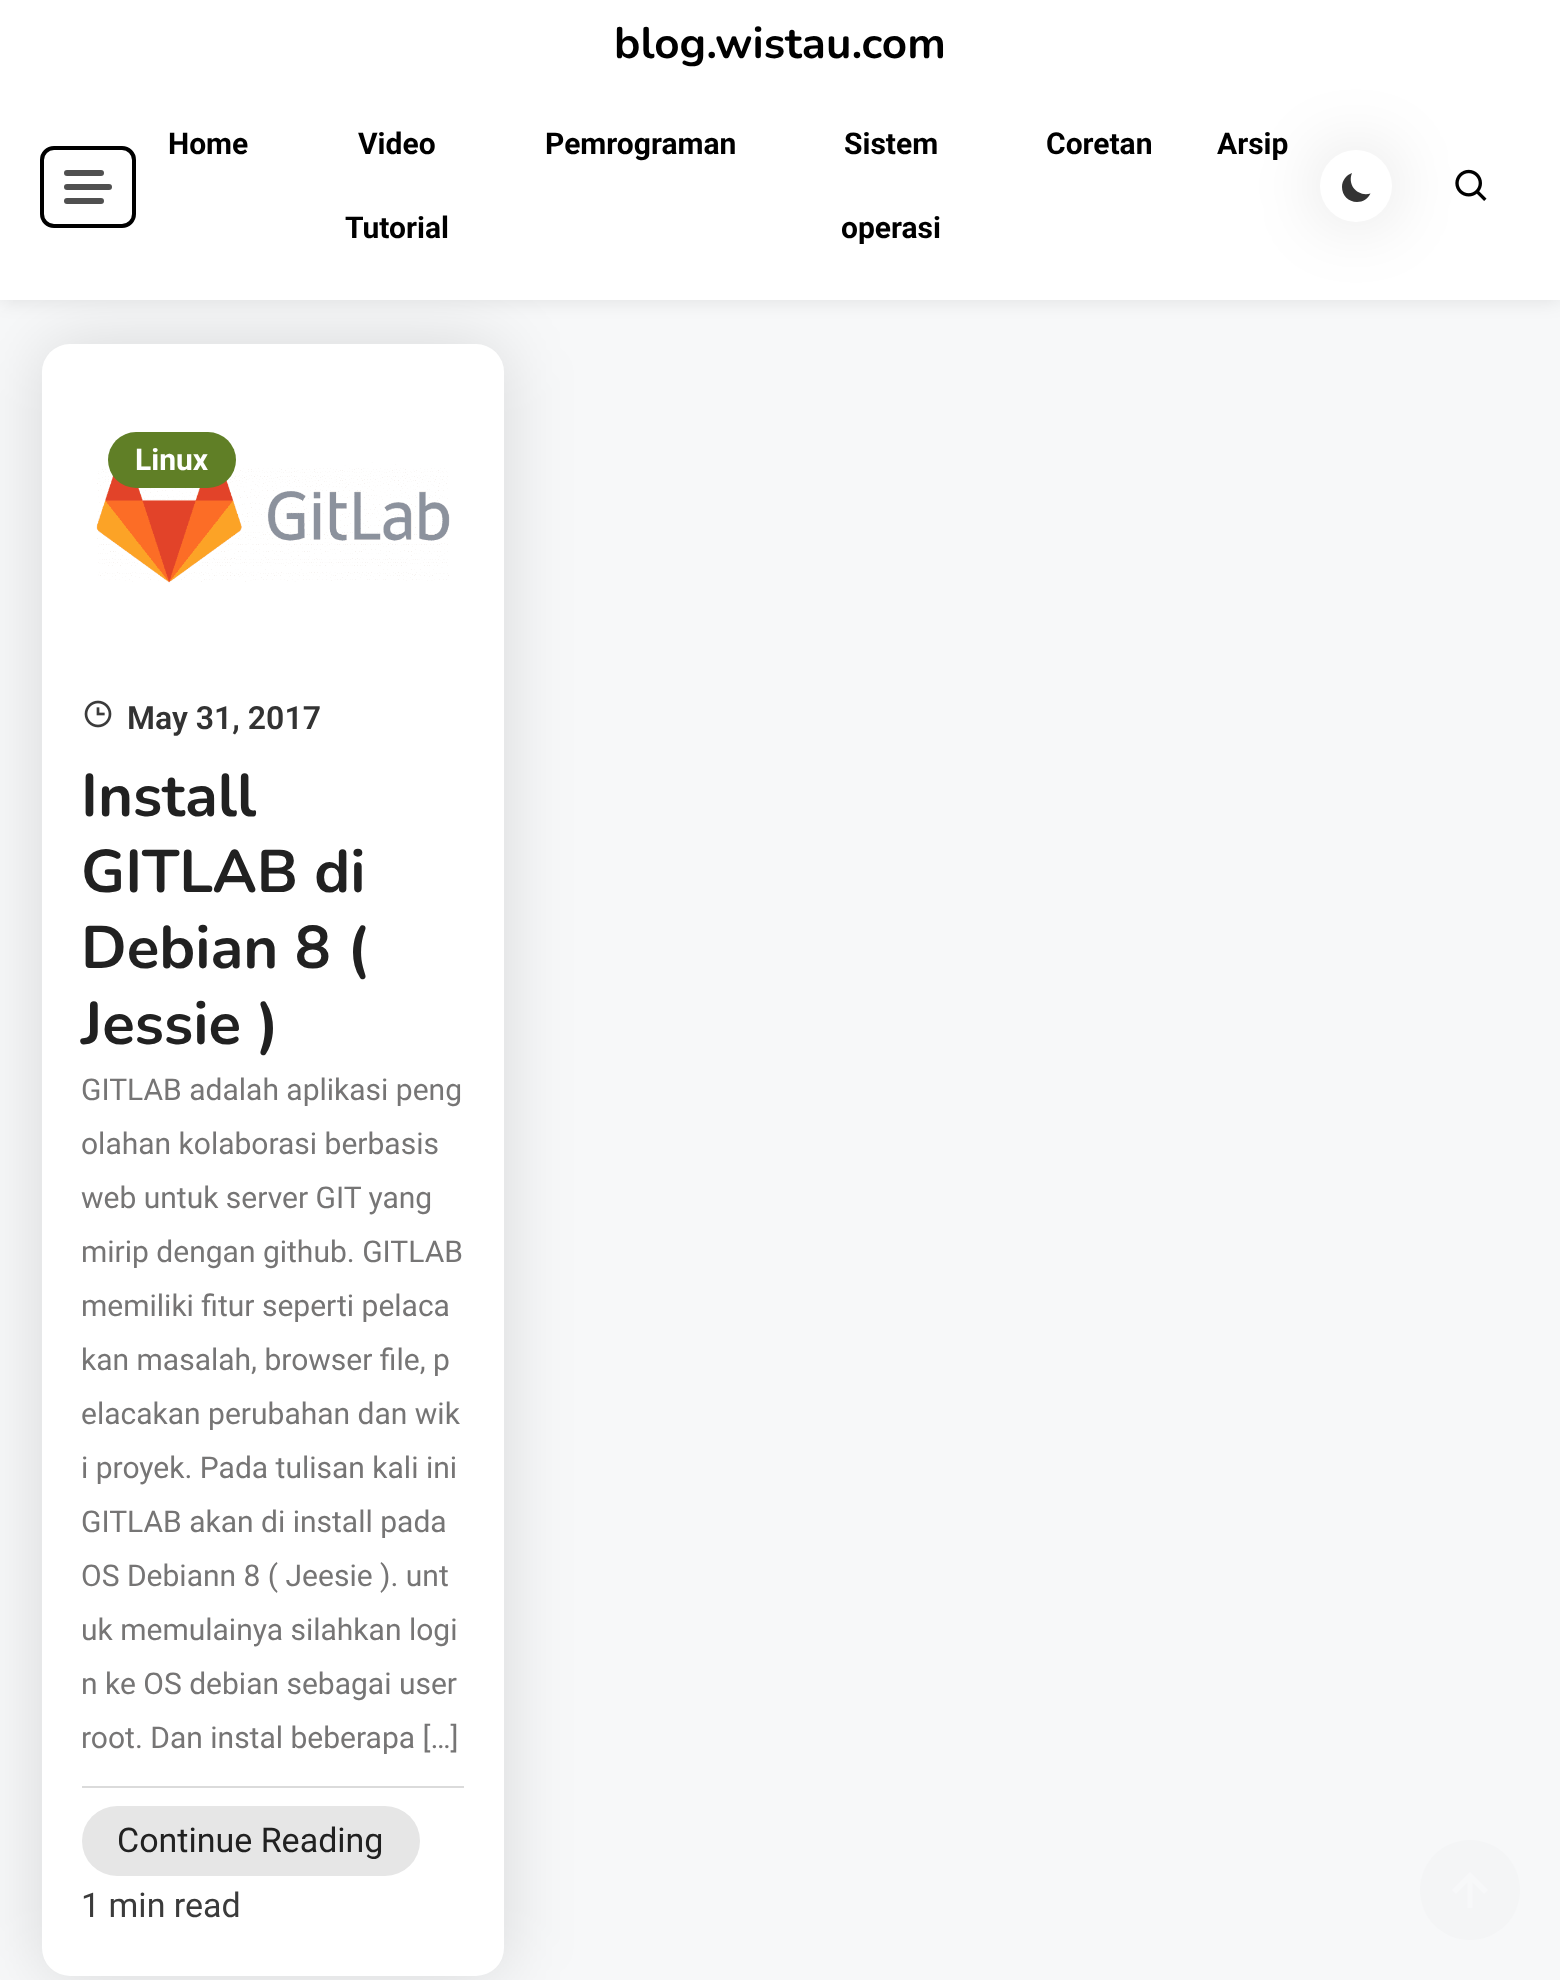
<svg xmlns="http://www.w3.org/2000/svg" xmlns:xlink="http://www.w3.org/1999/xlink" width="1560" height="1980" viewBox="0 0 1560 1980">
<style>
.cls-1{font:bold 44px Nunito;fill:#000000}
.cls-2{font:bold 30px Roboto;fill:#000000}
.cls-3{font:bold 30px Roboto;fill:#ffffff}
.cls-4{font:600 32px Roboto;fill:#333333}
.cls-5{font:bold 60px Nunito;fill:#212121}
.cls-6{font:30px Roboto;fill:#767575}
.cls-7{font:34px Roboto;fill:#212121}
.cls-8{font:34px Roboto;fill:#3b3b3b}
</style>
<rect width="100%" height="100%" fill="#f7f8f9"/>
<rect fill="#000000" fill-opacity="0.1" filter="blur(10px)" x="0" y="0" width="1560" height="300"/>
<rect fill="#000000" fill-opacity="0.13" filter="blur(35px)" x="42" y="344" width="462" height="1632" rx="28"/>
<rect fill="#ffffff" x="0" y="0" width="1560" height="300"/>
<rect fill="none" stroke="#000000" stroke-width="4" x="42" y="148" width="92" height="78" rx="12"/>
<rect fill="#505050" x="64" y="170" width="40" height="6" rx="3"/>
<rect fill="#505050" x="64" y="184" width="48" height="6" rx="3"/>
<rect fill="#505050" x="64" y="198" width="40" height="6" rx="3"/>
<rect fill="#000000" fill-opacity="0.13" filter="blur(35px)" x="1320" y="150" width="72" height="72" rx="36"/>
<circle fill="#ffffff" cx="1356" cy="186" r="36"/>
<path fill="#333333" d="M1370.5 193.5C1358 197 1347 185.5 1352 173C1346.5 175 1342 180.5 1342 187C1342 195.5 1348.5 202 1357 202C1363 202 1368 198.5 1370.5 193.5Z"/>
<image xlink:href="image0.png" x="1455" y="169" width="32" height="32"/>
<rect fill="#ffffff" x="42" y="344" width="462" height="1632" rx="28"/>
<image xlink:href="image2.png" x="96" y="449" width="354" height="134"/>
<rect fill="#607f26" x="108" y="432" width="128" height="56" rx="28"/>
<image xlink:href="image1.png" x="84" y="700" width="28" height="28"/>
<rect fill="#dbdbdb" x="82" y="1786" width="382" height="2"/>
<rect fill="#e6e6e6" x="82" y="1806" width="338" height="70" rx="35"/>
<circle fill="#f4f5f6" cx="1470" cy="1890" r="50"/>
<path fill="#f7f8f9" d="M1467.5 1882.5V1908H1472.5V1882.5L1484 1894L1488 1890L1470 1872L1452 1890L1456 1894Z"/>
<text class="cls-1" x="614" y="58">blog.wistau.com</text>
<text class="cls-2" x="168" y="154">Home</text>
<text class="cls-2" x="358" y="154">Video</text>
<text class="cls-2" x="345" y="238">Tutorial</text>
<text class="cls-2" x="545" y="154">Pemrograman</text>
<text class="cls-2" x="844" y="154">Sistem</text>
<text class="cls-2" x="841" y="238">operasi</text>
<text class="cls-2" x="1046" y="154">Coretan</text>
<text class="cls-2" x="1217" y="154">Arsip</text>
<text class="cls-3" x="135" y="470">Linux</text>
<text class="cls-4" x="127" y="729">May 31, 2017</text>
<text class="cls-5"><tspan x="81" y="816">Install</tspan><tspan x="81" y="892">GITLAB di</tspan><tspan x="81" y="968">Debian 8 (</tspan><tspan x="81" y="1044">Jessie )</tspan></text>
<text class="cls-6"><tspan x="81" y="1100">GITLAB adalah aplikasi peng</tspan><tspan x="81" y="1154">olahan kolaborasi berbasis</tspan><tspan x="81" y="1208">web untuk server GIT yang</tspan><tspan x="81" y="1262">mirip dengan github. GITLAB</tspan><tspan x="81" y="1316">memiliki fitur seperti pelaca</tspan><tspan x="81" y="1370">kan masalah, browser file, p</tspan><tspan x="81" y="1424">elacakan perubahan dan wik</tspan><tspan x="81" y="1478">i proyek. Pada tulisan kali ini</tspan><tspan x="81" y="1532">GITLAB akan di install pada</tspan><tspan x="81" y="1586">OS Debiann 8 ( Jeesie ). unt</tspan><tspan x="81" y="1640">uk memulainya silahkan logi</tspan><tspan x="81" y="1694">n ke OS debian sebagai user</tspan><tspan x="81" y="1748">root. Dan instal beberapa […]</tspan></text>
<text class="cls-7" x="117" y="1852">Continue Reading</text>
<text class="cls-8" x="81" y="1917">1 min read</text>
</svg>
